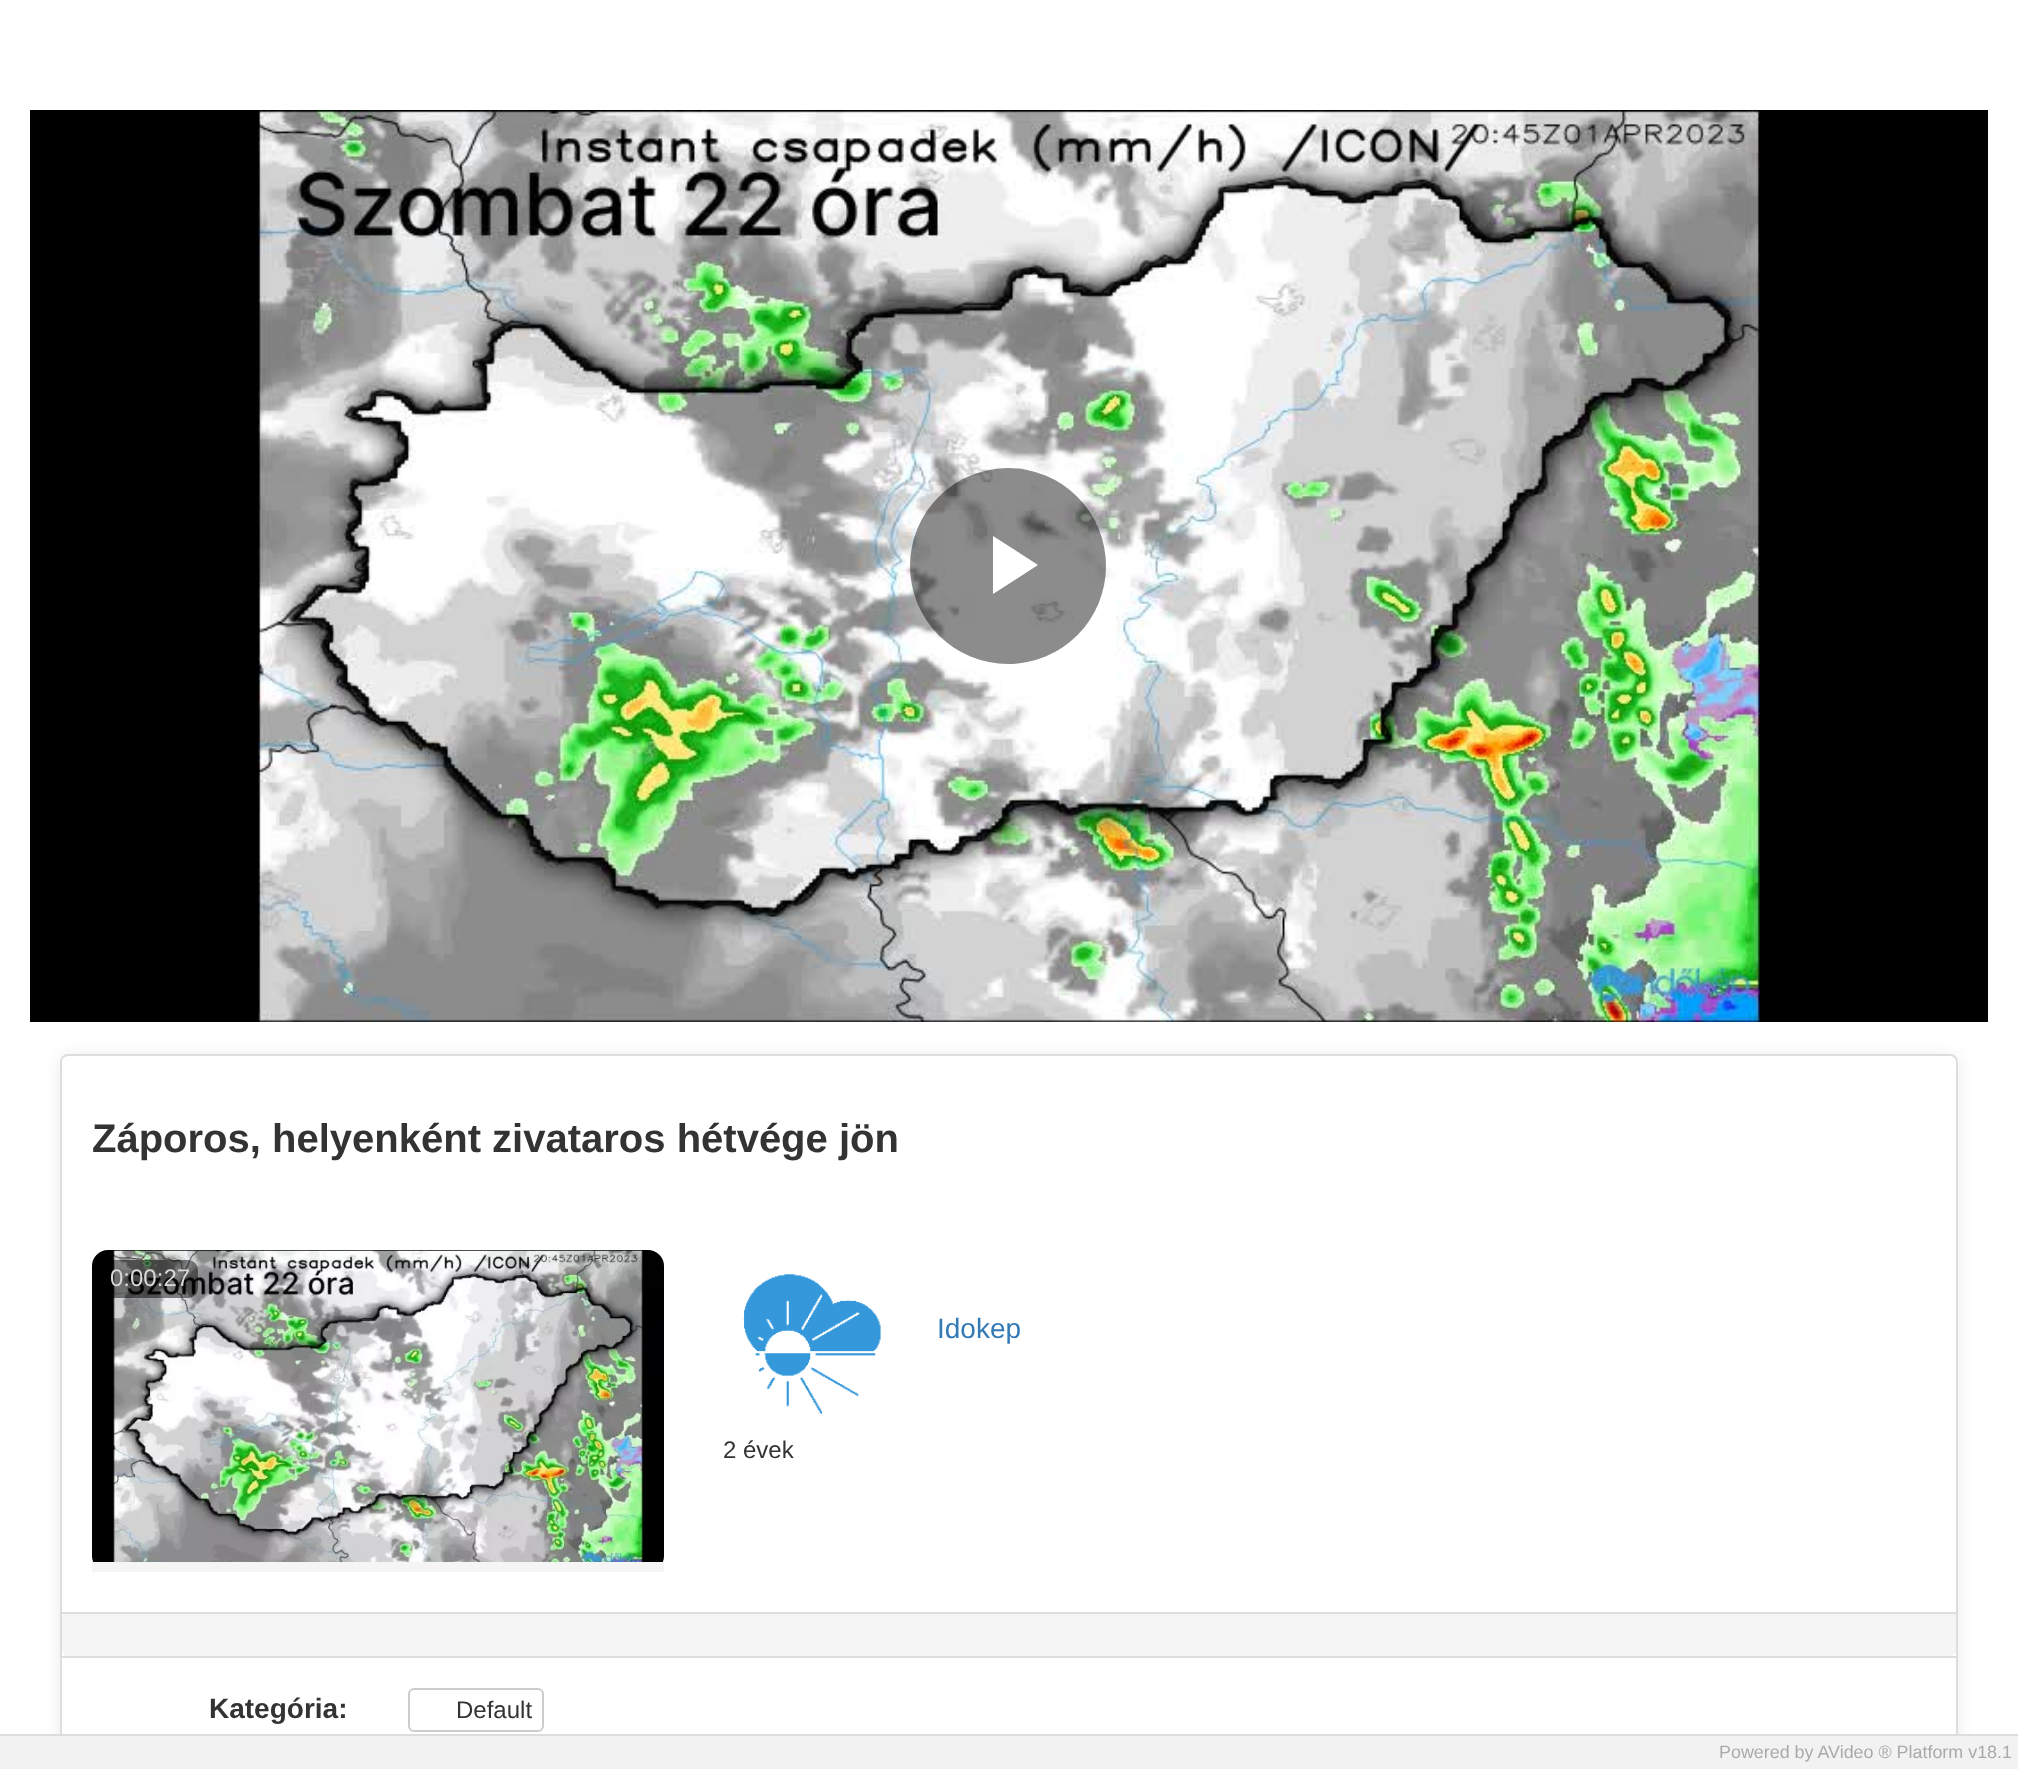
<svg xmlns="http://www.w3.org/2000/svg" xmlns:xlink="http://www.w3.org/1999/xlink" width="2018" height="1769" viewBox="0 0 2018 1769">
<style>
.cls-1{font:bold 40px Liberation Sans;fill:#333333}
.cls-2{font:24px Liberation Sans;fill:#d9d9d9}
.cls-3{font:28px Liberation Sans;fill:#337ab7}
.cls-4{font:24px Liberation Sans;fill:#333333}
.cls-5{font:bold 28px Liberation Sans;fill:#333333}
.cls-6{font:17.9px Liberation Sans;fill:#aaaaaa}
</style>
<rect width="100%" height="100%" fill="#ffffff"/>
<rect fill="#000000" x="30" y="110" width="1958" height="912"/>
<image xlink:href="image0.png" x="258" y="110" width="1502" height="912"/>
<circle fill="#000000" fill-opacity="0.45" cx="1008" cy="566" r="98"/>
<path fill="#ffffff" d="M993 536V594L1038 565Z"/>
<rect fill="#000000" fill-opacity="0.08" filter="blur(8px)" x="60" y="1056" width="1898" height="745" rx="8"/>
<rect fill="#ffffff" stroke="#dddddd" stroke-width="2" x="61" y="1055" width="1896" height="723" rx="7"/>
<image xlink:href="image1.png" x="92" y="1250" width="572" height="312"/>
<rect fill="#000000" fill-opacity="0.48" x="102" y="1260" width="96" height="38" rx="10"/>
<rect fill="#f5f5f5" x="92" y="1562" width="572" height="10"/>
<image xlink:href="image2.png" x="743" y="1274" width="138" height="140"/>
<path fill="#f5f5f5" d="M62 1612H1956V1650C1956 1653.5 1953.5 1656 1950 1656H68C64.5 1656 62 1653.5 62 1650Z"/>
<rect fill="#dddddd" x="62" y="1612" width="1894" height="2"/>
<rect fill="#dddddd" x="62" y="1656" width="1894" height="2"/>
<rect fill="none" stroke="#cccccc" stroke-width="2" x="409" y="1689" width="134" height="42" rx="5"/>
<rect fill="#f2f2f2" x="0" y="1736" width="2018" height="33"/>
<rect fill="#dddddd" x="0" y="1734" width="2018" height="2"/>
<text class="cls-1" x="92" y="1152">Záporos, helyenként zivataros hétvége jön</text>
<text class="cls-2" x="110" y="1286">0:00:27</text>
<text class="cls-3" x="937" y="1338">Idokep</text>
<text class="cls-4" x="723" y="1458">2 évek</text>
<text class="cls-5" x="209" y="1718">Kategória:</text>
<text class="cls-4" x="456" y="1718">Default</text>
<text class="cls-6" x="1719" y="1758">Powered by AVideo ® Platform v18.1</text>
</svg>
